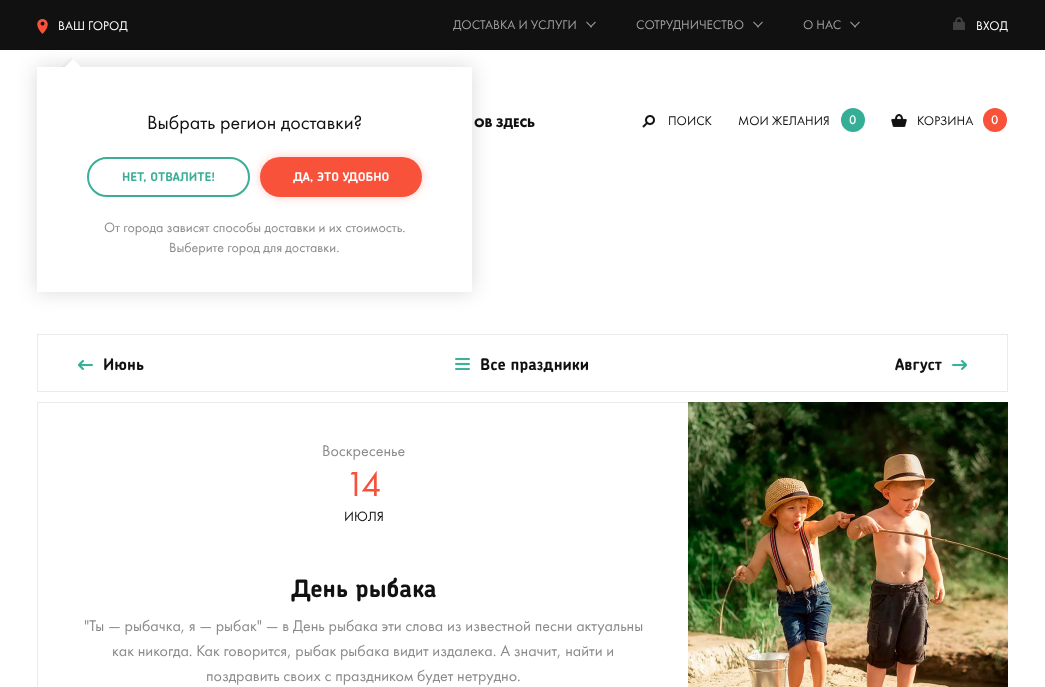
<svg xmlns="http://www.w3.org/2000/svg" xmlns:xlink="http://www.w3.org/1999/xlink" width="1045" height="687" viewBox="0 0 1045 687">
<style>
.cls-1{font:13px Futura PT;fill:#ffffff}
.cls-2{font:20px Futura PT;fill:#111111}
.cls-3{font:bold 12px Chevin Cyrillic;fill:#3cad96}
.cls-4{font:bold 12px Chevin Cyrillic;fill:#ffffff}
.cls-5{font:14px Futura PT;fill:#8c8b8b}
.cls-6{font:13px Futura PT;fill:#a0a0a0}
.cls-7{font:bold 13px Futura PT;fill:#111111}
.cls-8{font:13px Futura PT;fill:#111111}
.cls-9{font:500 13px Futura PT;fill:#ffffff}
.cls-10{font:bold 16px Chevin Cyrillic;fill:#111111}
.cls-11{font:16px Futura PT;fill:#8c8b8b}
.cls-12{font:36px Futura PT;fill:#f7513b}
.cls-13{font:14px Futura PT;fill:#111111}
.cls-14{font:bold 24px Chevin Cyrillic;fill:#111111}
</style>
<rect width="100%" height="100%" fill="#ffffff"/>
<rect fill="#111111" x="0" y="0" width="1045" height="50"/>
<image xlink:href="image0.png" x="37" y="19" width="11" height="15"/>
<rect fill="#020202" fill-opacity="0.15" filter="blur(10px)" x="37" y="67" width="435" height="225"/>
<rect fill="#ffffff" x="37" y="67" width="435" height="225"/>
<path fill="#000000" fill-opacity="0.03" d="M81 67H61L71 57Z"/>
<path fill="#ffffff" d="M81 67H65L73 59Z"/>
<rect fill="none" stroke="#3cad96" stroke-width="2" x="88" y="158" width="161" height="38" rx="19"/>
<rect fill="#f8523b" fill-opacity="0.3" filter="blur(5px)" x="260" y="157" width="162" height="40" rx="20"/>
<rect fill="#f8523b" x="260" y="157" width="162" height="40" rx="20"/>
<image xlink:href="image1.png" x="586" y="21" width="10" height="7"/>
<image xlink:href="image1.png" x="753" y="21" width="10" height="7"/>
<image xlink:href="image1.png" x="850" y="21" width="10" height="7"/>
<image xlink:href="image2.png" x="953" y="17" width="12" height="13"/>
<image xlink:href="image3.png" x="642" y="115" width="13" height="13"/>
<circle fill="#34ae96" cx="853" cy="120" r="12"/>
<image xlink:href="image4.png" x="891" y="114" width="16" height="13"/>
<circle fill="#f8523b" cx="995" cy="120" r="12"/>
<rect fill="none" stroke="#eaeaea" x="37.5" y="334.5" width="970" height="57"/>
<image xlink:href="image5.png" x="78" y="360" width="15" height="10"/>
<image xlink:href="image6.png" x="455" y="358" width="15" height="12"/>
<image xlink:href="image7.png" x="952" y="360" width="15" height="10"/>
<rect fill="none" stroke="#eaeaea" x="37.5" y="402.5" width="970" height="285"/>
<image xlink:href="image8.png" x="688" y="402" width="320" height="285"/>
<text class="cls-1" x="58" y="30">ВАШ ГОРОД</text>
<text class="cls-2" x="147" y="129">Выбрать регион доставки?</text>
<text class="cls-3" x="122" y="181">НЕТ, ОТВАЛИТЕ!</text>
<text class="cls-4" x="293" y="181">ДА, ЭТО УДОБНО</text>
<text class="cls-5" x="104" y="232">От города зависят способы доставки и их стоимость.</text>
<text class="cls-5" x="169" y="252">Выберите город для доставки.</text>
<text class="cls-6" x="453" y="29">ДОСТАВКА И УСЛУГИ</text>
<text class="cls-6" x="636" y="29">СОТРУДНИЧЕСТВО</text>
<text class="cls-6" x="803" y="29">О НАС</text>
<text class="cls-1" x="976" y="30">ВХОД</text>
<text class="cls-7" x="474" y="127">ОВ ЗДЕСЬ</text>
<text class="cls-8" x="668" y="125">ПОИСК</text>
<text class="cls-8" x="738" y="125">МОИ ЖЕЛАНИЯ</text>
<text class="cls-9" x="849" y="124">0</text>
<text class="cls-8" x="917" y="125">КОРЗИНА</text>
<text class="cls-9" x="991" y="124">0</text>
<text class="cls-10" x="103" y="370">Июнь</text>
<text class="cls-10" x="480" y="370">Все праздники</text>
<text class="cls-10" x="895" y="370">Август</text>
<text class="cls-11" x="322" y="456">Воскресенье</text>
<text class="cls-12" x="345" y="496">14</text>
<text class="cls-13" x="344" y="521">ИЮЛЯ</text>
<text class="cls-14" x="291" y="597">День рыбака</text>
<text class="cls-11" x="84" y="631">"Ты — рыбачка, я — рыбак" — в День рыбака эти слова из известной песни актуальны</text>
<text class="cls-11" x="112" y="656">как никогда. Как говорится, рыбак рыбака видит издалека. А значит, найти и</text>
<text class="cls-11" x="206" y="681">поздравить своих с праздником будет нетрудно.</text>
</svg>
